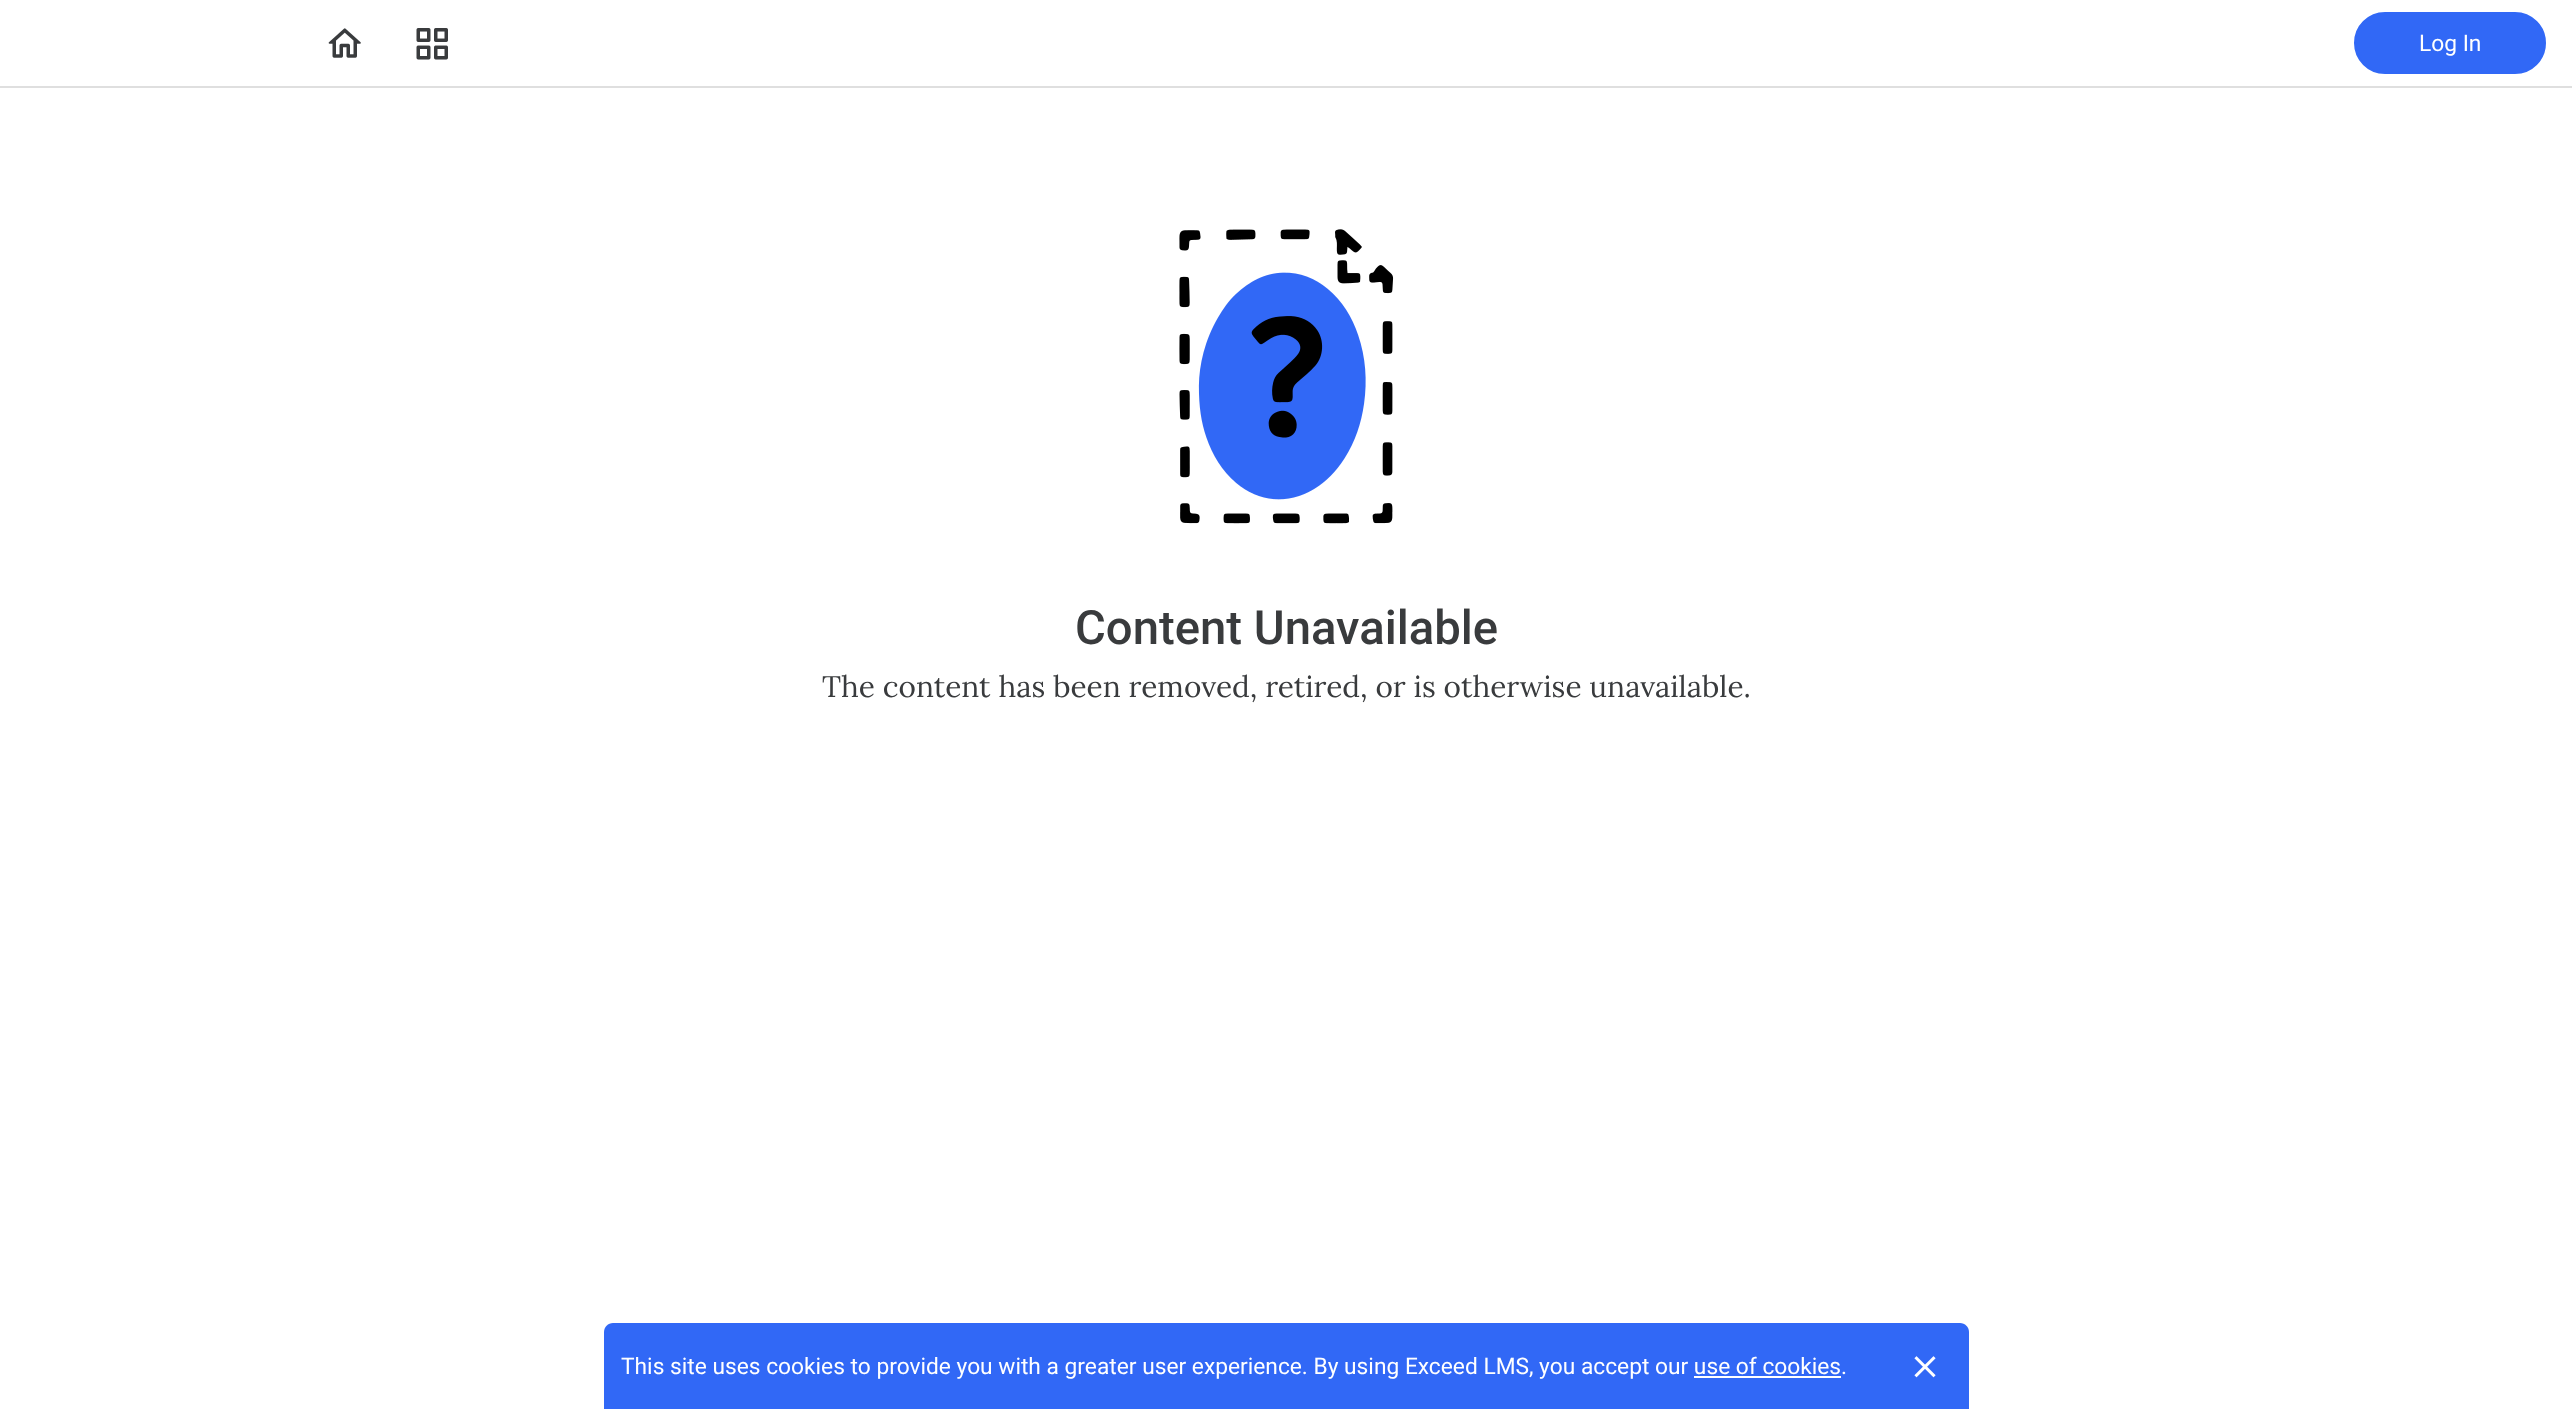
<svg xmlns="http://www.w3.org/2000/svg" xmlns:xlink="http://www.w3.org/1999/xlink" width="2572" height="1409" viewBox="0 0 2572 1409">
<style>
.cls-1{font:22.75px Roboto;fill:#ffffff}
.cls-2{font:500 47.25px Roboto;fill:#393b3d}
.cls-3{font:29.75px Lora;fill:#393b3d}
</style>
<rect width="100%" height="100%" fill="#ffffff"/>
<rect fill="#dfdfdf" x="0" y="86" width="2572" height="2"/>
<image xlink:href="image0.png" x="328" y="28" width="33" height="30"/>
<image xlink:href="image1.png" x="416" y="28" width="32" height="32"/>
<rect fill="#3168f6" stroke="#3168f6" stroke-width="2" x="2355" y="13" width="190" height="60" rx="30"/>
<image xlink:href="image2.png" x="1179" y="229" width="215" height="295"/>
<path fill="#3168f6" d="M613 1323H1960C1965 1323 1969 1327 1969 1332V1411H604V1332C604 1327 608 1323 613 1323Z"/>
<rect fill="#ffffff" x="1694" y="1376" width="147" height="2"/>
<image xlink:href="image3.png" x="1914" y="1356" width="22" height="22"/>
<text class="cls-1" x="2419" y="51">Log In</text>
<text class="cls-2" x="1075" y="644">Content Unavailable</text>
<text class="cls-3" x="822" y="697">The content has been removed, retired, or is otherwise unavailable.</text>
<text class="cls-1" x="621" y="1374">This site uses cookies to provide you with a greater user experience. By using Exceed LMS, you accept our use of cookies.</text>
</svg>
